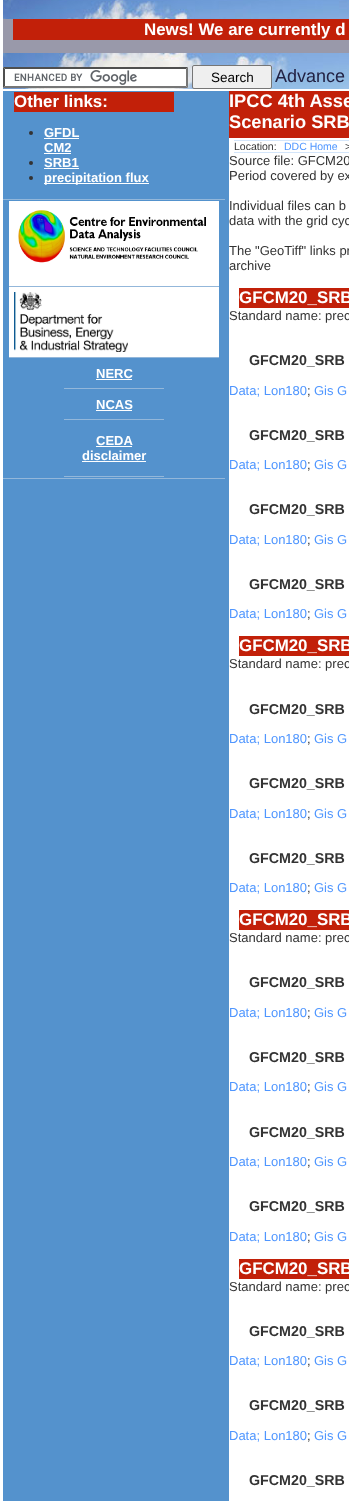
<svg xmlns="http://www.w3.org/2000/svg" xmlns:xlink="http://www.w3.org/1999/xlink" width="349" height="1501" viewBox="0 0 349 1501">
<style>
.cls-1{font:bold 16.9px Liberation Sans;fill:#ffffff}
.cls-2{font:13.5px Liberation Sans;fill:#000000}
.cls-3{font:18px Liberation Sans;fill:#222244}
.cls-4{font:bold 13px Liberation Sans;fill:#ffffff}
.cls-5{font:bold 18.25px Liberation Sans;fill:#ffffff}
.cls-6{font:10.5px Liberation Sans;fill:#333333}
.cls-7{font:10.5px Liberation Sans;fill:#4f96ff}
.cls-8{font:13px Liberation Sans;fill:#333333}
.cls-9{font:bold 14.25px Liberation Sans;fill:#333333}
.cls-10{font:13px Liberation Sans;fill:#4f96ff}
</style>
<rect width="100%" height="100%" fill="#ffffff"/>
<rect fill="#9999aa" x="3" y="19" width="346" height="34"/>
<image xlink:href="image0.png" x="3" y="0" width="346" height="19"/>
<rect fill="#c22009" x="13" y="19" width="336" height="21"/>
<image xlink:href="image1.png" x="3" y="53" width="346" height="36"/>
<rect fill="#ffffff" x="3" y="67" width="185" height="21"/>
<image xlink:href="image2.png" x="14" y="70" width="123" height="15"/>
<path fill="#4f4f4f" d="M3 67H188L186 69H5Z"/>
<path fill="#767676" d="M188 67V88L186 86V69Z"/>
<path fill="#767676" d="M188 88H3L5 86H186Z"/>
<path fill="#4f4f4f" d="M3 88V67L5 69V86Z"/>
<rect fill="#efefef" stroke="#767676" x="192.5" y="65.5" width="79" height="23" rx="1.5"/>
<rect fill="#5492cd" x="3" y="91" width="226" height="1410"/>
<rect fill="#93b7da" x="3" y="199" width="222" height="1"/>
<rect fill="#c22009" x="14" y="92" width="160" height="20"/>
<circle fill="#333333" cx="31" cy="133" r="2"/>
<rect fill="#ffffff" x="44" y="138" width="35" height="1"/>
<rect fill="#ffffff" x="44" y="153" width="27" height="1"/>
<circle fill="#333333" cx="31" cy="163" r="2"/>
<rect fill="#ffffff" x="44" y="168" width="35" height="1"/>
<circle fill="#333333" cx="31" cy="178" r="2"/>
<rect fill="#ffffff" x="44" y="183" width="105" height="1"/>
<rect fill="#93b7da" x="3" y="478" width="222" height="1"/>
<rect fill="#ffffff" x="9" y="201" width="210" height="156"/>
<rect fill="#93b7da" x="9" y="286" width="210" height="1"/>
<image xlink:href="image3.png" x="18" y="210" width="188" height="53"/>
<rect fill="#93b7da" x="9" y="357" width="210" height="1"/>
<image xlink:href="image4.png" x="14" y="292" width="114" height="60"/>
<rect fill="#93b7da" x="64" y="388" width="100" height="1"/>
<rect fill="#ffffff" x="96" y="379" width="36" height="1"/>
<rect fill="#93b7da" x="64" y="419" width="100" height="1"/>
<rect fill="#ffffff" x="96" y="410" width="36" height="1"/>
<rect fill="#93b7da" x="64" y="476" width="100" height="1"/>
<rect fill="#ffffff" x="96" y="446" width="36" height="1"/>
<rect fill="#ffffff" x="82" y="461" width="64" height="1"/>
<rect fill="#c22009" x="229" y="91" width="120" height="47"/>
<rect fill="#d3e5fa" x="234" y="140" width="115" height="1"/>
<rect fill="#d3e5fa" x="234" y="152" width="115" height="1"/>
<rect fill="#c22009" x="239" y="288" width="110" height="20"/>
<rect fill="#c22009" x="239" y="636" width="110" height="20"/>
<rect fill="#c22009" x="239" y="910" width="110" height="20"/>
<rect fill="#c22009" x="239" y="1259" width="110" height="20"/>
<text class="cls-1" x="144" y="35">News! We are currently d</text>
<text class="cls-2" x="211" y="82">Search</text>
<text class="cls-3" x="275" y="82">Advance</text>
<text class="cls-1" x="14" y="107">Other links:</text>
<text class="cls-4"><tspan x="44" y="137">GFDL</tspan><tspan x="44" y="152">CM2</tspan><tspan x="44" y="167">SRB1</tspan><tspan x="44" y="182">precipitation flux</tspan></text>
<text class="cls-4" x="96" y="378">NERC</text>
<text class="cls-4" x="96" y="409">NCAS</text>
<text class="cls-4" x="96" y="445">CEDA</text>
<text class="cls-4" x="82" y="460">disclaimer</text>
<text class="cls-5"><tspan x="229" y="107">IPCC 4th Asse</tspan><tspan x="229" y="128">Scenario SRB</tspan></text>
<text class="cls-6" x="234" y="150">Location:</text>
<text class="cls-7" x="284" y="150">DDC Home</text>
<text class="cls-6" x="345" y="150">&gt;</text>
<text class="cls-8"><tspan x="229" y="165">Source file: GFCM20</tspan><tspan x="229" y="180">Period covered by ex</tspan></text>
<text class="cls-8"><tspan x="229" y="210">Individual files can b</tspan><tspan x="229" y="225">data with the grid cyc</tspan></text>
<text class="cls-8"><tspan x="229" y="255">The "GeoTiff" links pr</tspan><tspan x="229" y="270">archive</tspan></text>
<text class="cls-1" x="239" y="303">GFCM20_SRB</text>
<text class="cls-8" x="229" y="320">Standard name: prec</text>
<text class="cls-9" x="249" y="365">GFCM20_SRB</text>
<text class="cls-10" x="229" y="395">Data; Lon180</text>
<text class="cls-8" x="307" y="395">;</text>
<text class="cls-10" x="314" y="395">Gis G</text>
<text class="cls-9" x="249" y="440">GFCM20_SRB</text>
<text class="cls-10" x="229" y="469">Data; Lon180</text>
<text class="cls-8" x="307" y="469">;</text>
<text class="cls-10" x="314" y="469">Gis G</text>
<text class="cls-9" x="249" y="514">GFCM20_SRB</text>
<text class="cls-10" x="229" y="544">Data; Lon180</text>
<text class="cls-8" x="307" y="544">;</text>
<text class="cls-10" x="314" y="544">Gis G</text>
<text class="cls-9" x="249" y="589">GFCM20_SRB</text>
<text class="cls-10" x="229" y="618">Data; Lon180</text>
<text class="cls-8" x="307" y="618">;</text>
<text class="cls-10" x="314" y="618">Gis G</text>
<text class="cls-1" x="239" y="651">GFCM20_SRB</text>
<text class="cls-8" x="229" y="668">Standard name: prec</text>
<text class="cls-9" x="249" y="714">GFCM20_SRB</text>
<text class="cls-10" x="229" y="743">Data; Lon180</text>
<text class="cls-8" x="307" y="743">;</text>
<text class="cls-10" x="314" y="743">Gis G</text>
<text class="cls-9" x="249" y="788">GFCM20_SRB</text>
<text class="cls-10" x="229" y="818">Data; Lon180</text>
<text class="cls-8" x="307" y="818">;</text>
<text class="cls-10" x="314" y="818">Gis G</text>
<text class="cls-9" x="249" y="863">GFCM20_SRB</text>
<text class="cls-10" x="229" y="892">Data; Lon180</text>
<text class="cls-8" x="307" y="892">;</text>
<text class="cls-10" x="314" y="892">Gis G</text>
<text class="cls-1" x="239" y="925">GFCM20_SRB</text>
<text class="cls-8" x="229" y="942">Standard name: prec</text>
<text class="cls-9" x="249" y="987">GFCM20_SRB</text>
<text class="cls-10" x="229" y="1017">Data; Lon180</text>
<text class="cls-8" x="307" y="1017">;</text>
<text class="cls-10" x="314" y="1017">Gis G</text>
<text class="cls-9" x="249" y="1062">GFCM20_SRB</text>
<text class="cls-10" x="229" y="1091">Data; Lon180</text>
<text class="cls-8" x="307" y="1091">;</text>
<text class="cls-10" x="314" y="1091">Gis G</text>
<text class="cls-9" x="249" y="1137">GFCM20_SRB</text>
<text class="cls-10" x="229" y="1166">Data; Lon180</text>
<text class="cls-8" x="307" y="1166">;</text>
<text class="cls-10" x="314" y="1166">Gis G</text>
<text class="cls-9" x="249" y="1211">GFCM20_SRB</text>
<text class="cls-10" x="229" y="1241">Data; Lon180</text>
<text class="cls-8" x="307" y="1241">;</text>
<text class="cls-10" x="314" y="1241">Gis G</text>
<text class="cls-1" x="239" y="1274">GFCM20_SRB</text>
<text class="cls-8" x="229" y="1291">Standard name: prec</text>
<text class="cls-9" x="249" y="1336">GFCM20_SRB</text>
<text class="cls-10" x="229" y="1365">Data; Lon180</text>
<text class="cls-8" x="307" y="1365">;</text>
<text class="cls-10" x="314" y="1365">Gis G</text>
<text class="cls-9" x="249" y="1410">GFCM20_SRB</text>
<text class="cls-10" x="229" y="1440">Data; Lon180</text>
<text class="cls-8" x="307" y="1440">;</text>
<text class="cls-10" x="314" y="1440">Gis G</text>
<text class="cls-9" x="249" y="1485">GFCM20_SRB</text>
</svg>
